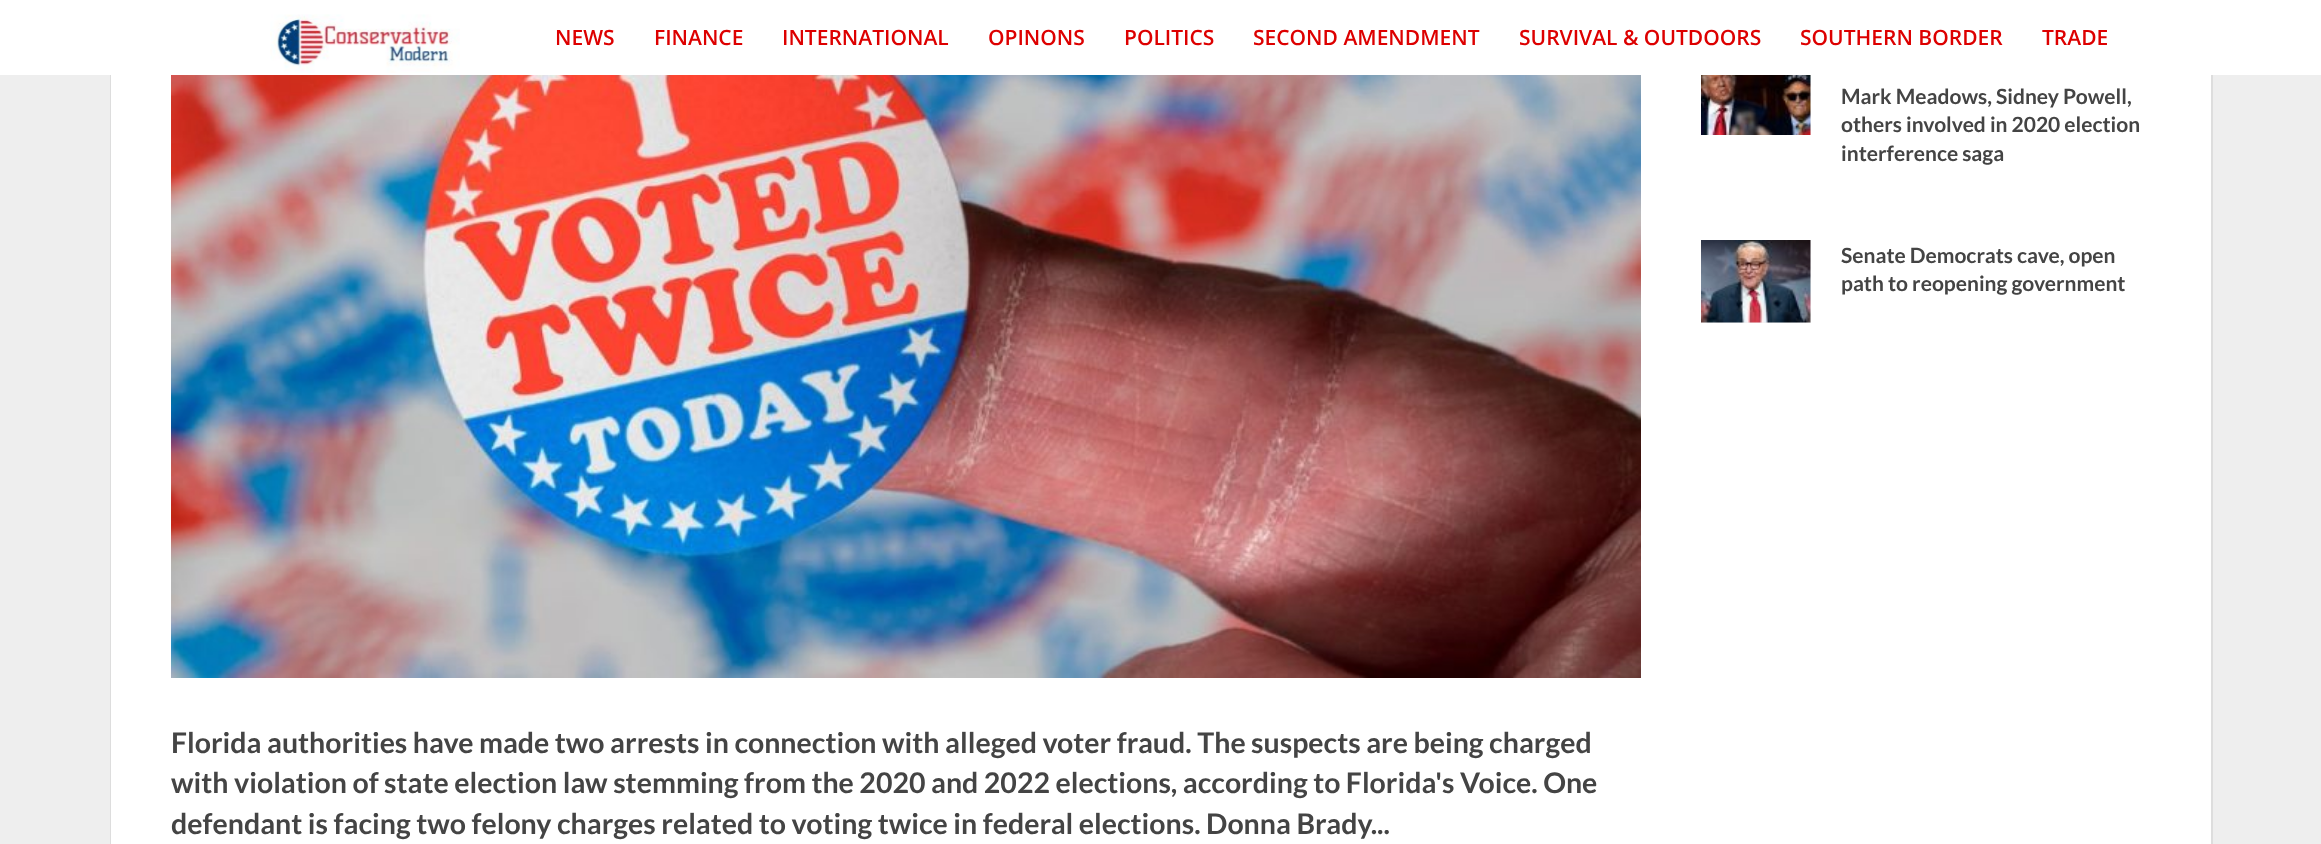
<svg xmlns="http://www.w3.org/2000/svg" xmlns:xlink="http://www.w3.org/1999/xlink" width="2321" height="844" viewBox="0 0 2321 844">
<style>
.cls-1{font:600 21px Open Sans;fill:#dd0000}
.cls-2{font:bold 21px Lato;fill:#444444}
.cls-3{font:bold 28.5px Lato;fill:#444444}
</style>
<rect width="100%" height="100%" fill="#eeeeee"/>
<rect fill="none" stroke="#dddddd" stroke-width="2" x="111" y="-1" width="2101" height="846"/>
<rect fill="#ffffff" x="0" y="0" width="2321" height="75"/>
<image xlink:href="image0.png" x="270" y="14" width="190" height="59"/>
<rect fill="#ffffff" x="111" y="75" width="2100" height="769"/>
<rect fill="#f2f2f2" x="1810" y="75" width="1" height="60"/>
<image xlink:href="image1.png" x="1701" y="75" width="110" height="60"/>
<rect fill="#f2f2f2" x="1701" y="240" width="110" height="83"/>
<image xlink:href="image2.png" x="1701" y="240" width="110" height="83"/>
<image xlink:href="image3.png" x="171" y="75" width="1470" height="603"/>
<text class="cls-1" x="555" y="45">NEWS</text>
<text class="cls-1" x="654" y="45">FINANCE</text>
<text class="cls-1" x="782" y="45">INTERNATIONAL</text>
<text class="cls-1" x="988" y="45">OPINONS</text>
<text class="cls-1" x="1124" y="45">POLITICS</text>
<text class="cls-1" x="1253" y="45">SECOND AMENDMENT</text>
<text class="cls-1" x="1519" y="45">SURVIVAL &amp; OUTDOORS</text>
<text class="cls-1" x="1800" y="45">SOUTHERN BORDER</text>
<text class="cls-1" x="2042" y="45">TRADE</text>
<text class="cls-2"><tspan x="1841" y="104">Mark Meadows, Sidney Powell,</tspan><tspan x="1841" y="132">others involved in 2020 election</tspan><tspan x="1841" y="161">interference saga</tspan></text>
<text class="cls-2"><tspan x="1841" y="263">Senate Democrats cave, open</tspan><tspan x="1841" y="291">path to reopening government</tspan></text>
<text class="cls-3"><tspan x="171" y="753">Florida authorities have made two arrests in connection with alleged voter fraud. The suspects are being charged</tspan><tspan x="171" y="793">with violation of state election law stemming from the 2020 and 2022 elections, according to Florida's Voice. One</tspan><tspan x="171" y="834">defendant is facing two felony charges related to voting twice in federal elections. Donna Brady...</tspan></text>
</svg>
